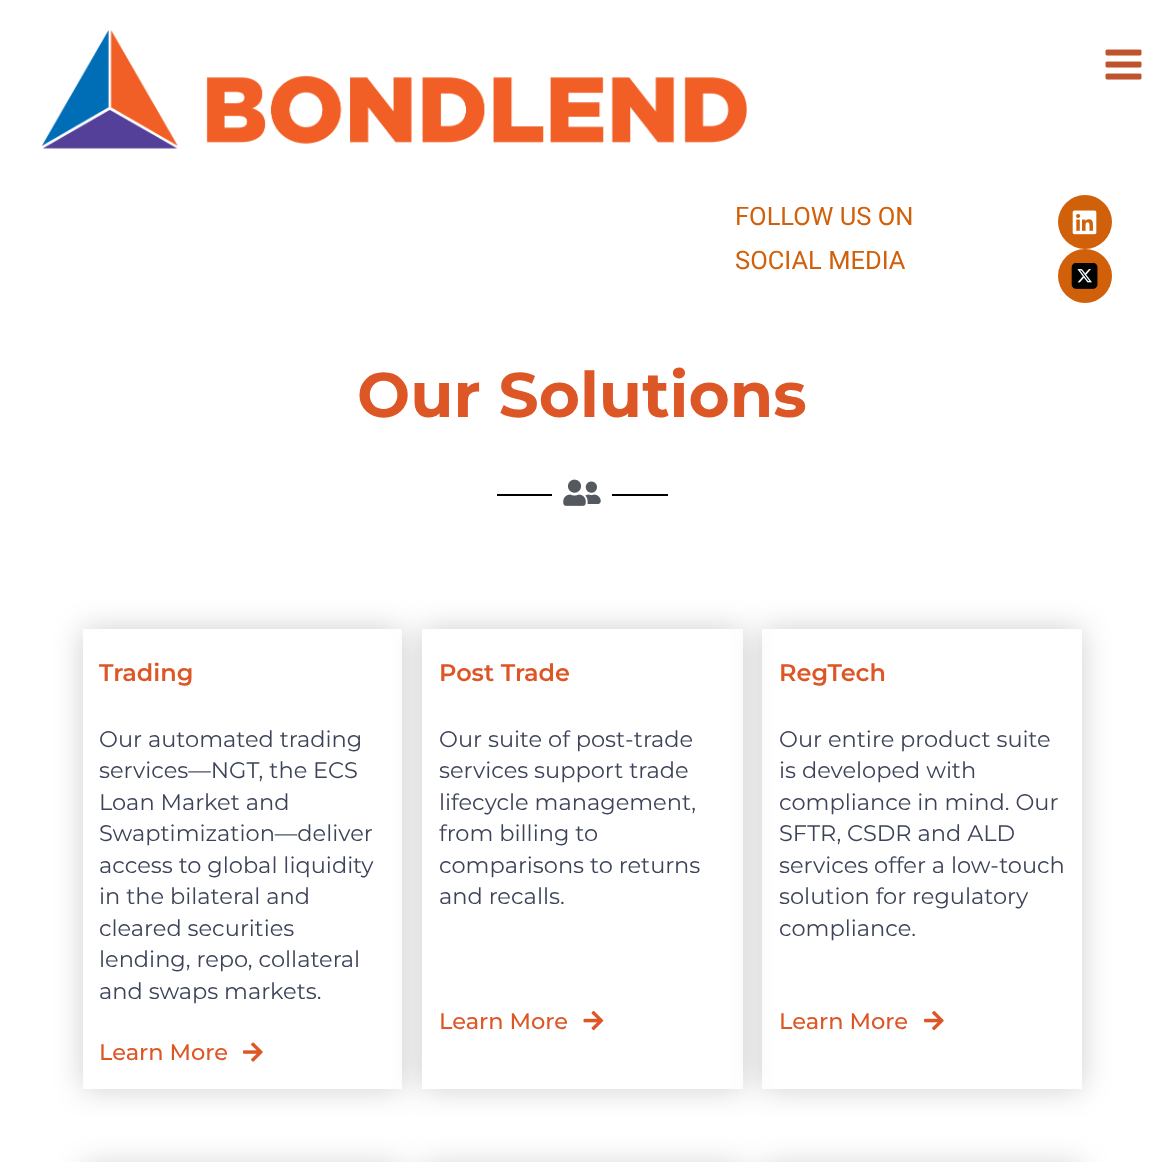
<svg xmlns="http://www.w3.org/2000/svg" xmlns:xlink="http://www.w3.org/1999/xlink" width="1164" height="1162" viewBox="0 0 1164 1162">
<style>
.cls-1{font:25.5px Roboto;fill:#d1600a}
.cls-2{font:bold 63px Montserrat;fill:#dd5626}
.cls-3{font:600 24px Montserrat;fill:#dd5626}
.cls-4{font:22.5px Montserrat;fill:#3d4459}
.cls-5{font:500 22.5px Montserrat;fill:#dd5626}
</style>
<defs>
<clipPath id="clip1"><path d="M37 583H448V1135H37ZM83 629H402V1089H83Z" clip-rule="evenodd"/></clipPath>
<clipPath id="clip2"><path d="M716 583H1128V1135H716ZM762 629H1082V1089H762Z" clip-rule="evenodd"/></clipPath>
</defs>
<rect width="100%" height="100%" fill="#ffffff"/>
<image xlink:href="image0.png" x="42" y="30" width="705" height="119"/>
<image xlink:href="image1.png" x="1105" y="49" width="37" height="31"/>
<circle fill="#d1600a" cx="1085" cy="222" r="27"/>
<image xlink:href="image2.png" x="1072" y="210" width="25" height="25"/>
<circle fill="#d1600a" cx="1085" cy="276" r="27"/>
<image xlink:href="image3.png" x="1071" y="263" width="27" height="26"/>
<rect fill="#000000" x="497" y="494" width="55" height="2"/>
<image xlink:href="image4.png" x="563" y="479" width="38" height="27"/>
<rect fill="#000000" x="612" y="494" width="56" height="2"/>
<g clip-path="url(#clip1)">
<rect fill="#000000" fill-opacity="0.19" filter="blur(15px)" x="83" y="629" width="319" height="460"/>
</g>
<image xlink:href="image5.png" x="243" y="1042" width="20" height="20"/>
<rect fill="#000000" fill-opacity="0.19" filter="blur(15px)" x="422" y="629" width="321" height="460"/>
<rect fill="#ffffff" x="422" y="629" width="321" height="460"/>
<image xlink:href="image6.png" x="583" y="1011" width="21" height="20"/>
<g clip-path="url(#clip2)">
<rect fill="#000000" fill-opacity="0.19" filter="blur(15px)" x="762" y="629" width="320" height="460"/>
</g>
<image xlink:href="image7.png" x="924" y="1011" width="20" height="20"/>
<rect fill="#000000" fill-opacity="0.19" filter="blur(15px)" x="83" y="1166" width="319" height="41"/>
<rect fill="#000000" fill-opacity="0.19" filter="blur(15px)" x="422" y="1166" width="321" height="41"/>
<rect fill="#000000" fill-opacity="0.19" filter="blur(15px)" x="762" y="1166" width="320" height="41"/>
<text class="cls-1"><tspan x="735" y="225">FOLLOW US ON</tspan><tspan x="735" y="269">SOCIAL MEDIA</tspan></text>
<text class="cls-2" x="357" y="417">Our Solutions</text>
<text class="cls-3" x="99" y="681">Trading</text>
<text class="cls-4"><tspan x="99" y="747">Our automated trading</tspan><tspan x="99" y="778">services—NGT, the ECS</tspan><tspan x="99" y="810">Loan Market and</tspan><tspan x="99" y="841">Swaptimization—deliver</tspan><tspan x="99" y="873">access to global liquidity</tspan><tspan x="99" y="904">in the bilateral and</tspan><tspan x="99" y="936">cleared securities</tspan><tspan x="99" y="967">lending, repo, collateral</tspan><tspan x="99" y="999">and swaps markets.</tspan></text>
<text class="cls-5" x="99" y="1060">Learn More</text>
<text class="cls-3" x="439" y="681">Post Trade</text>
<text class="cls-4"><tspan x="439" y="747">Our suite of post-trade</tspan><tspan x="439" y="778">services support trade</tspan><tspan x="439" y="810">lifecycle management,</tspan><tspan x="439" y="841">from billing to</tspan><tspan x="439" y="873">comparisons to returns</tspan><tspan x="439" y="904">and recalls.</tspan></text>
<text class="cls-5" x="439" y="1029">Learn More</text>
<text class="cls-3" x="779" y="681">RegTech</text>
<text class="cls-4"><tspan x="779" y="747">Our entire product suite</tspan><tspan x="779" y="778">is developed with</tspan><tspan x="779" y="810">compliance in mind. Our</tspan><tspan x="779" y="841">SFTR, CSDR and ALD</tspan><tspan x="779" y="873">services offer a low-touch</tspan><tspan x="779" y="904">solution for regulatory</tspan><tspan x="779" y="936">compliance.</tspan></text>
<text class="cls-5" x="779" y="1029">Learn More</text>
</svg>
